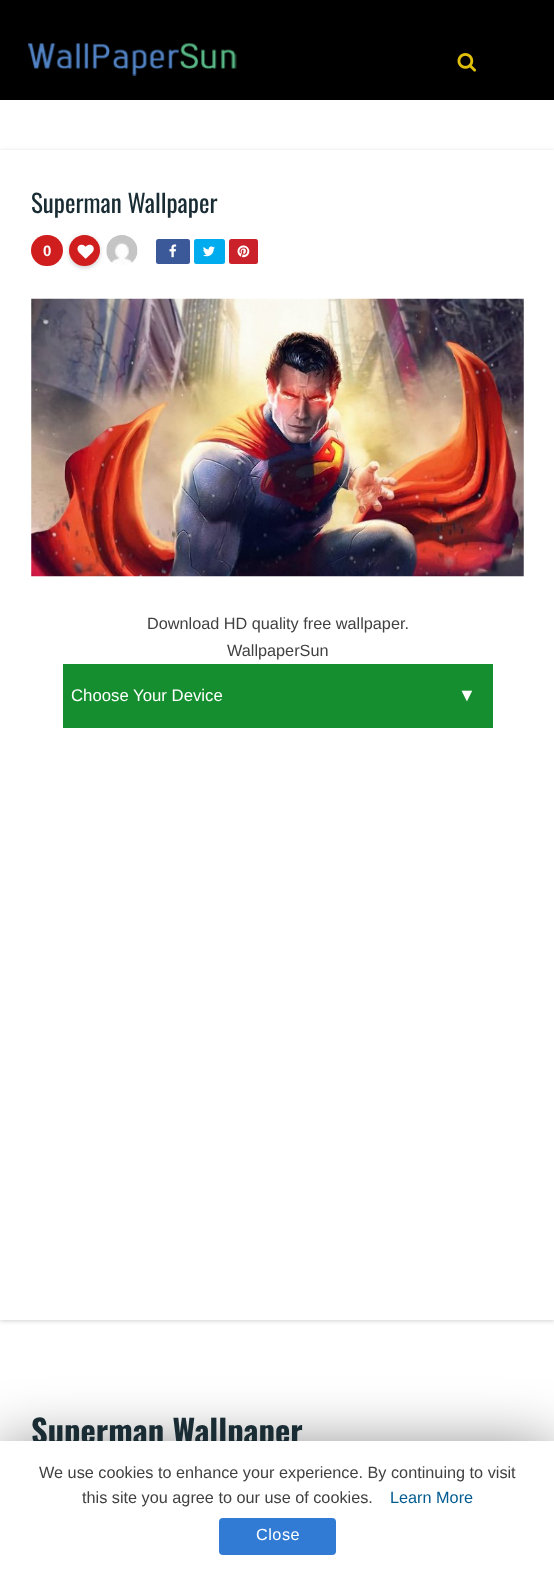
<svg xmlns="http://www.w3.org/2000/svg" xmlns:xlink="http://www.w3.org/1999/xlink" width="554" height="1579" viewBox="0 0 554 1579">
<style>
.cls-1{font:25px Oswald;fill:#192b33}
.cls-2{font:bold 15px Liberation Sans;fill:#ffffff}
.cls-3{font:16.25px Liberation Sans;fill:#414141}
.cls-4{font:16.75px Liberation Sans;fill:#ffffff}
.cls-5{font:18px Liberation Sans;fill:#ffffff}
.cls-6{font:bold 32.5px Oswald;fill:#192b33}
.cls-7{font:16.25px Liberation Sans;fill:#005b90}
.cls-8{font:16.25px Liberation Sans;letter-spacing:0.5px;fill:#ffffff}
</style>
<defs>
<clipPath id="clip1"><path d="M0 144H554V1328H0ZM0 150H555V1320H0Z" clip-rule="evenodd"/></clipPath>
</defs>
<rect width="100%" height="100%" fill="#000000"/>
<image xlink:href="image0.png" x="28" y="43" width="209" height="34"/>
<image xlink:href="image1.png" x="457" y="53" width="20" height="19"/>
<rect fill="#ffffff" x="0" y="100" width="554" height="1341"/>
<g clip-path="url(#clip1)">
<rect fill="#221919" fill-opacity="0.2" filter="blur(2px)" x="0" y="151" width="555" height="1170"/>
</g>
<rect fill="#d01d1d" x="31" y="235" width="32" height="31" rx="15.5"/>
<rect fill="#221919" fill-opacity="0.2" filter="blur(2px)" x="69" y="236" width="31" height="32" rx="15.5"/>
<circle fill="#d01d1d" cx="84.5" cy="250.5" r="15.5"/>
<image xlink:href="image2.png" x="77" y="244" width="17" height="15"/>
<image xlink:href="image3.png" x="106" y="235" width="32" height="30"/>
<rect fill="#3b5998" x="156" y="239" width="34" height="25" rx="2.5"/>
<image xlink:href="image4.png" x="169" y="244" width="8" height="14"/>
<rect fill="#00aced" x="194" y="239" width="31" height="25" rx="2.5"/>
<image xlink:href="image5.png" x="203" y="246" width="12" height="11"/>
<rect fill="#ca212a" x="229" y="239" width="29" height="25" rx="2.5"/>
<image xlink:href="image6.png" x="237" y="245" width="13" height="13"/>
<image xlink:href="image7.png" x="31" y="298" width="493" height="279"/>
<rect fill="#148e2e" x="63" y="664" width="430" height="64"/>
<rect fill="#000000" fill-opacity="0.5" filter="blur(31px)" x="0" y="1448" width="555" height="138"/>
<text class="cls-1" x="31" y="213">Superman Wallpaper</text>
<text class="cls-2" x="43" y="256">0</text>
<text class="cls-3" x="147" y="629">Download HD quality free wallpaper.</text>
<text class="cls-3" x="227" y="656">WallpaperSun</text>
<text class="cls-4" x="71" y="701">Choose Your Device</text>
<text class="cls-5" x="458" y="701">▼</text>
<text class="cls-6" x="31" y="1444">Superman Wallpaper</text>
<rect fill="#ffffff" x="0" y="1441" width="554" height="138"/>
<text class="cls-3" x="39" y="1478">We use cookies to enhance your experience. By continuing to visit</text>
<text class="cls-3" x="82" y="1503">this site you agree to our use of cookies.</text>
<text class="cls-7" x="390" y="1503">Learn More</text>
<rect fill="#317bd5" x="219" y="1518" width="117" height="37" rx="4"/>
<text class="cls-8" x="256" y="1540">Close</text>
</svg>
